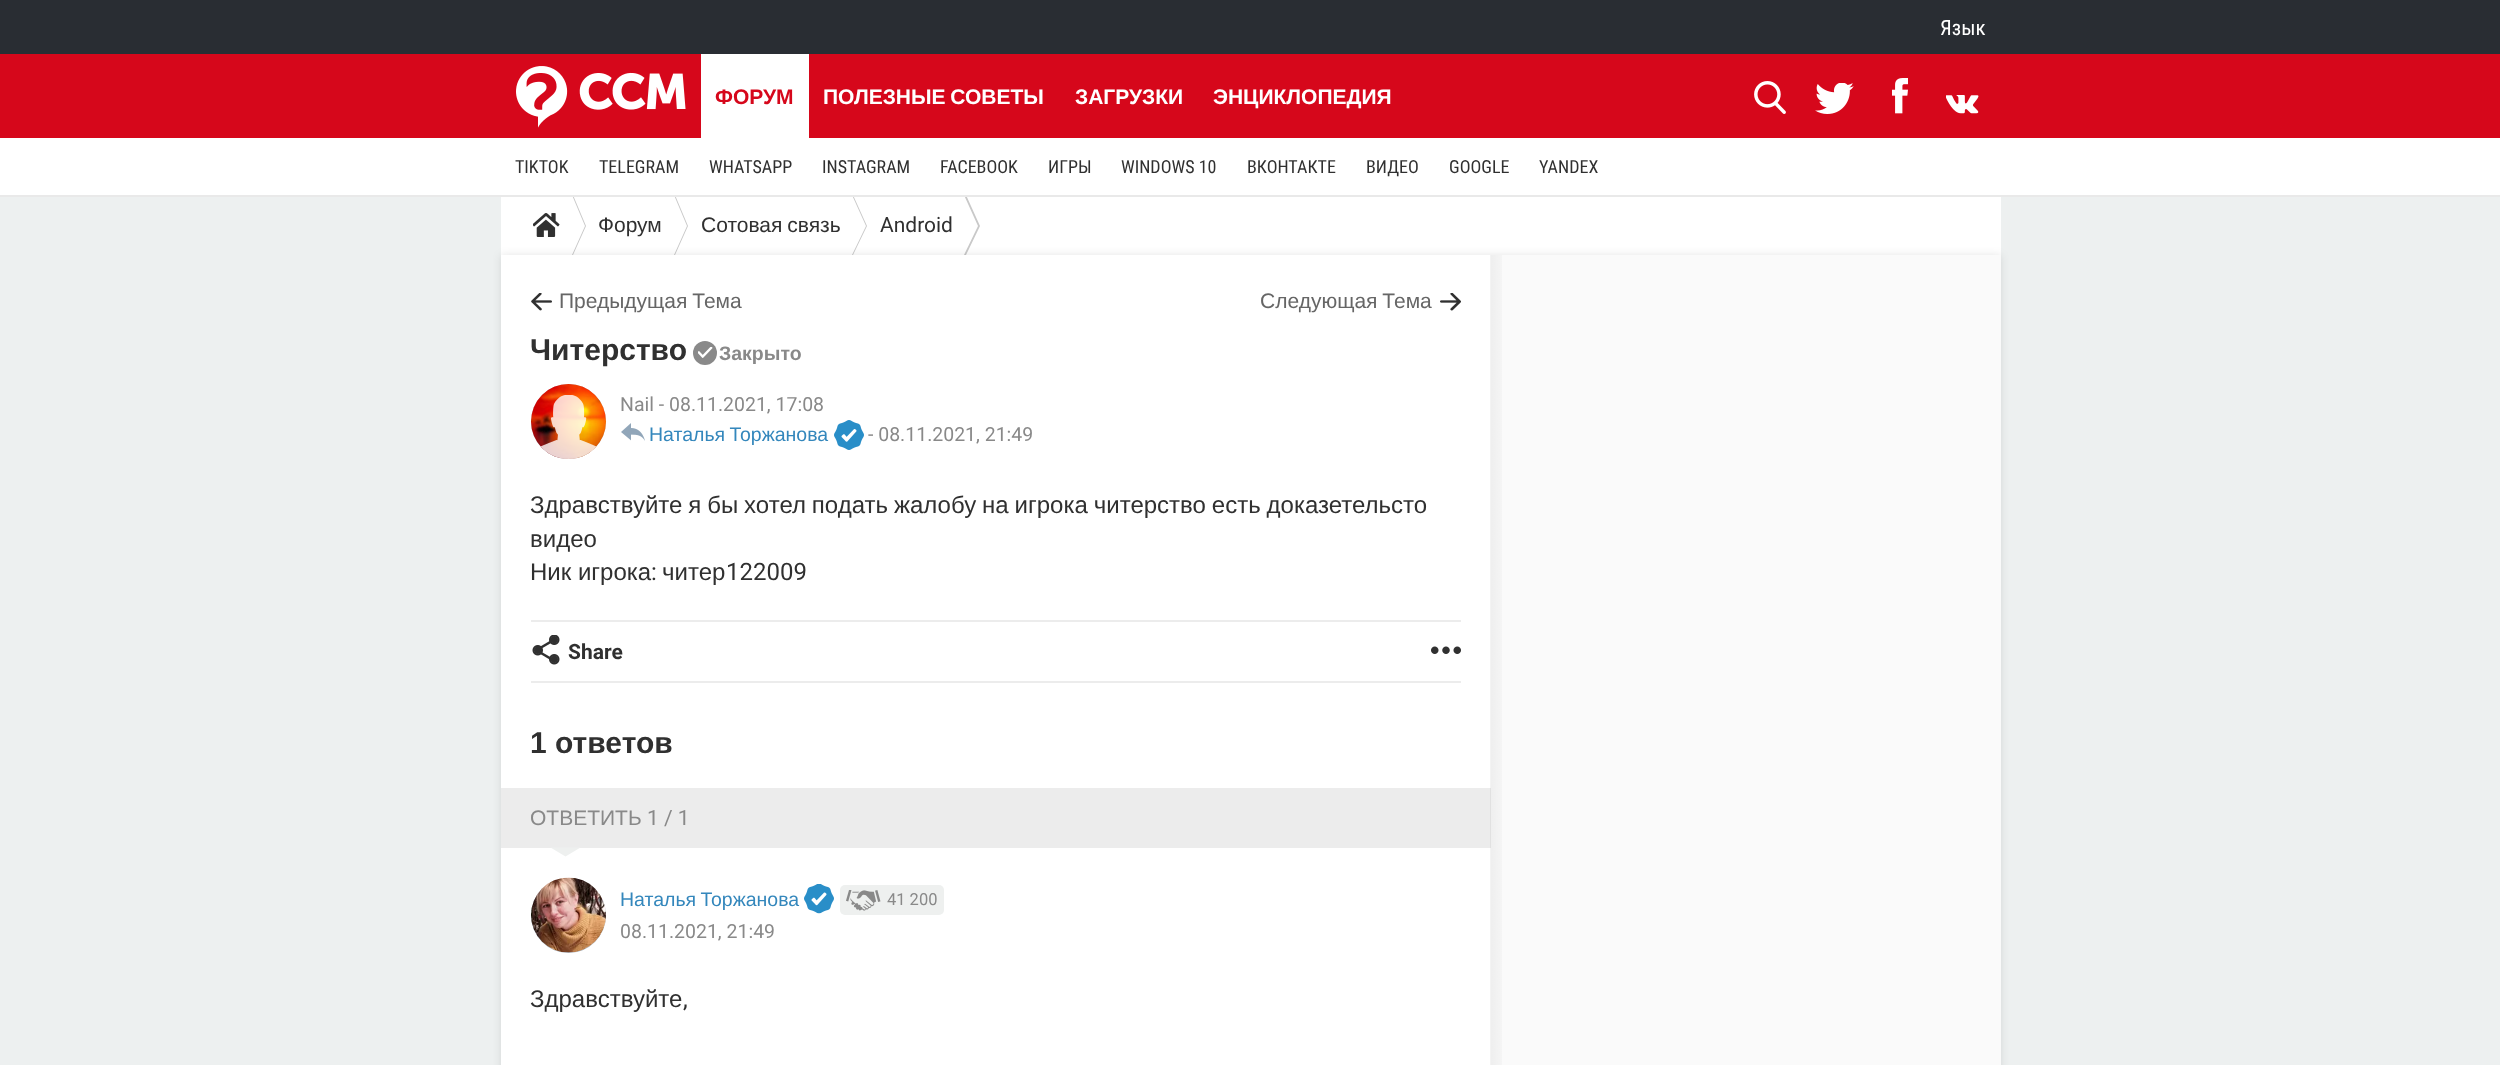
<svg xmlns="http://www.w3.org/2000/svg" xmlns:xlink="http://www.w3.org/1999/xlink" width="2500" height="1065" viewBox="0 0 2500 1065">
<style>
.cls-1{font:21px Roboto Condensed;fill:#ffffff}
.cls-2{font:bold 21px Liberation Sans;fill:#d6071b}
.cls-3{font:bold 21px Liberation Sans;fill:#ffffff}
.cls-4{font:18px Roboto Condensed;fill:#303030}
.cls-5{font:21px Liberation Sans;fill:#303030}
.cls-6{font:21px Roboto;fill:#303030}
.cls-7{font:21px Liberation Sans;fill:#666666}
.cls-8{font:bold 30px Liberation Sans;fill:#303030}
.cls-9{font:bold 19.5px Liberation Sans;fill:#898989}
.cls-10{font:19.5px Roboto;fill:#898989}
.cls-11{font:19.5px Liberation Sans;fill:#3487bc}
.cls-12{font:24px Liberation Sans;fill:#303030}
.cls-13{font:24px Roboto;fill:#303030}
.cls-14{font:bold 21px Roboto;fill:#303030}
.cls-15{font:21px Liberation Sans;fill:#898989}
.cls-16{font:21px Roboto;fill:#898989}
.cls-17{font:16.5px Roboto;fill:#898989}
</style>
<defs>
<linearGradient id="g1" gradientUnits="userSpaceOnUse" x1="1489" y1="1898" x2="1512" y2="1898"><stop offset="0" stop-color="#000000" stop-opacity="0.05"/><stop offset="1" stop-color="#000000" stop-opacity="0"/></linearGradient>
</defs>
<rect width="100%" height="100%" fill="#edf0f0"/>
<rect fill="#ffffff" x="501" y="197" width="1500" height="58"/>
<path fill="#c9c9c9" fill-rule="evenodd" d="M572 195H573L586 226L573 255H572L585 226Z"/>
<path fill="#c9c9c9" fill-rule="evenodd" d="M674 195H675L688 226L675 255H674L687 226Z"/>
<path fill="#c9c9c9" fill-rule="evenodd" d="M852 195H853L867 226L853 255H852L866 226Z"/>
<path fill="#c9c9c9" fill-rule="evenodd" d="M964 195H966L980 226L966 255H964L978 226Z"/>
<path fill="#e9e9e9" d="M0 195V197H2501V2H2500V195Z"/>
<rect fill="#ffffff" x="0" y="138" width="2500" height="57"/>
<rect fill="#292d33" x="0" y="0" width="2500" height="54"/>
<rect fill="#d6071b" x="0" y="54" width="2500" height="84"/>
<image xlink:href="image0.png" x="516" y="66" width="170" height="62"/>
<image xlink:href="image1.png" x="1754" y="81" width="32" height="33"/>
<image xlink:href="image2.png" x="1815" y="83" width="39" height="31"/>
<image xlink:href="image3.png" x="1892" y="78" width="16" height="36"/>
<image xlink:href="image4.png" x="1946" y="95" width="33" height="19"/>
<rect fill="#ffffff" x="701" y="54" width="108" height="84"/>
<image xlink:href="image5.png" x="533" y="213" width="27" height="24"/>
<rect fill="#000000" fill-opacity="0.1" filter="blur(4.5px)" x="501" y="255" width="1500" height="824"/>
<rect fill="#ffffff" x="501" y="255" width="990" height="810"/>
<image xlink:href="image6.png" x="531" y="293" width="21" height="18"/>
<image xlink:href="image7.png" x="1440" y="293" width="21" height="18"/>
<circle fill="#898989" cx="705" cy="353" r="12"/>
<image xlink:href="image8.png" x="698" y="347" width="15" height="11"/>
<circle fill="#b0becb" cx="568.5" cy="421.5" r="37.5"/>
<image xlink:href="image9.png" x="531" y="384" width="75" height="75"/>
<image xlink:href="image10.png" x="540" y="395" width="57" height="64"/>
<image xlink:href="image11.png" x="621" y="423" width="24" height="18"/>
<image xlink:href="image12.png" x="834" y="420" width="30" height="30"/>
<rect fill="#ececec" x="531" y="620" width="930" height="2"/>
<rect fill="#ececec" x="531" y="681" width="930" height="2"/>
<image xlink:href="image13.png" x="532" y="635" width="28" height="30"/>
<image xlink:href="image14.png" x="1431" y="646" width="30" height="8"/>
<rect fill="#ececec" x="501" y="788" width="990" height="60"/>
<path fill="#eef0ef" d="M550.5 847.5H580.5L565.5 856.5Z"/>
<circle fill="#b0becb" cx="568.5" cy="915.5" r="37.5"/>
<image xlink:href="image15.png" x="531" y="877" width="75" height="76"/>
<image xlink:href="image16.png" x="804" y="884" width="30" height="30"/>
<rect fill="#eef0ef" x="840" y="885" width="104" height="30" rx="5"/>
<image xlink:href="image17.png" x="846" y="890" width="35" height="21"/>
<rect fill="#fafafa" x="1491" y="255" width="510" height="810"/>
<rect fill="url(#g1)" x="1490" y="255" width="12" height="810"/>
<text class="cls-1" x="1940" y="35">Язык</text>
<text class="cls-2" x="715" y="104">ФОРУМ</text>
<text class="cls-3" x="823" y="104" word-spacing="-1">ПОЛЕЗНЫЕ СОВЕТЫ</text>
<text class="cls-3" x="1075" y="104">ЗАГРУЗКИ</text>
<text class="cls-3" x="1213" y="104">ЭНЦИКЛОПЕДИЯ</text>
<text class="cls-4" x="515" y="173">TIKTOK</text>
<text class="cls-4" x="599" y="173">TELEGRAM</text>
<text class="cls-4" x="709" y="173">WHATSAPP</text>
<text class="cls-4" x="822" y="173">INSTAGRAM</text>
<text class="cls-4" x="940" y="173">FACEBOOK</text>
<text class="cls-4" x="1048" y="173">ИГРЫ</text>
<text class="cls-4" x="1121" y="173">WINDOWS 10</text>
<text class="cls-4" x="1247" y="173">ВКОНТАКТЕ</text>
<text class="cls-4" x="1366" y="173">ВИДЕО</text>
<text class="cls-4" x="1449" y="173">GOOGLE</text>
<text class="cls-4" x="1539" y="173">YANDEX</text>
<text class="cls-5" x="598" y="232">Форум</text>
<text class="cls-5" x="701" y="232" word-spacing="-1">Сотовая связь</text>
<text class="cls-6" x="880" y="232">Android</text>
<text class="cls-7" x="559" y="308" word-spacing="-1">Предыдущая Тема</text>
<text class="cls-7" x="1260" y="308" word-spacing="-1">Следующая Тема</text>
<text class="cls-8" x="530" y="360">Читерство</text>
<text class="cls-9" x="719" y="360">Закрыто</text>
<text class="cls-10" x="620" y="411">Nail - 08.11.2021, 17:08</text>
<text class="cls-11" x="649" y="441" word-spacing="-1">Наталья Торжанова</text>
<text class="cls-10" x="868" y="441">- 08.11.2021, 21:49</text>
<text class="cls-12"><tspan x="530" y="513" word-spacing="-0.75">Здравствуйте я бы хотел подать жалобу на игрока читерство есть доказетельсто</tspan><tspan x="530" y="547">видео</tspan><tspan x="530" y="580">Ник игрока</tspan></text>
<text class="cls-13" x="651" y="580">:</text>
<text class="cls-12" x="662" y="580">читер</text>
<text class="cls-13" x="726" y="580">122009</text>
<text class="cls-14" x="568" y="659">Share</text>
<text class="cls-8" x="530" y="753">1 ответов</text>
<text class="cls-15" x="530" y="825">ОТВЕТИТЬ</text>
<text class="cls-16" x="647" y="825">1 / 1</text>
<text class="cls-11" x="620" y="906" word-spacing="-1">Наталья Торжанова</text>
<text class="cls-17" x="887" y="905">41 200</text>
<text class="cls-10" x="620" y="938">08.11.2021, 21:49</text>
<text class="cls-12" x="530" y="1007">Здравствуйте</text>
<text class="cls-13" x="683" y="1007">,</text>
</svg>
